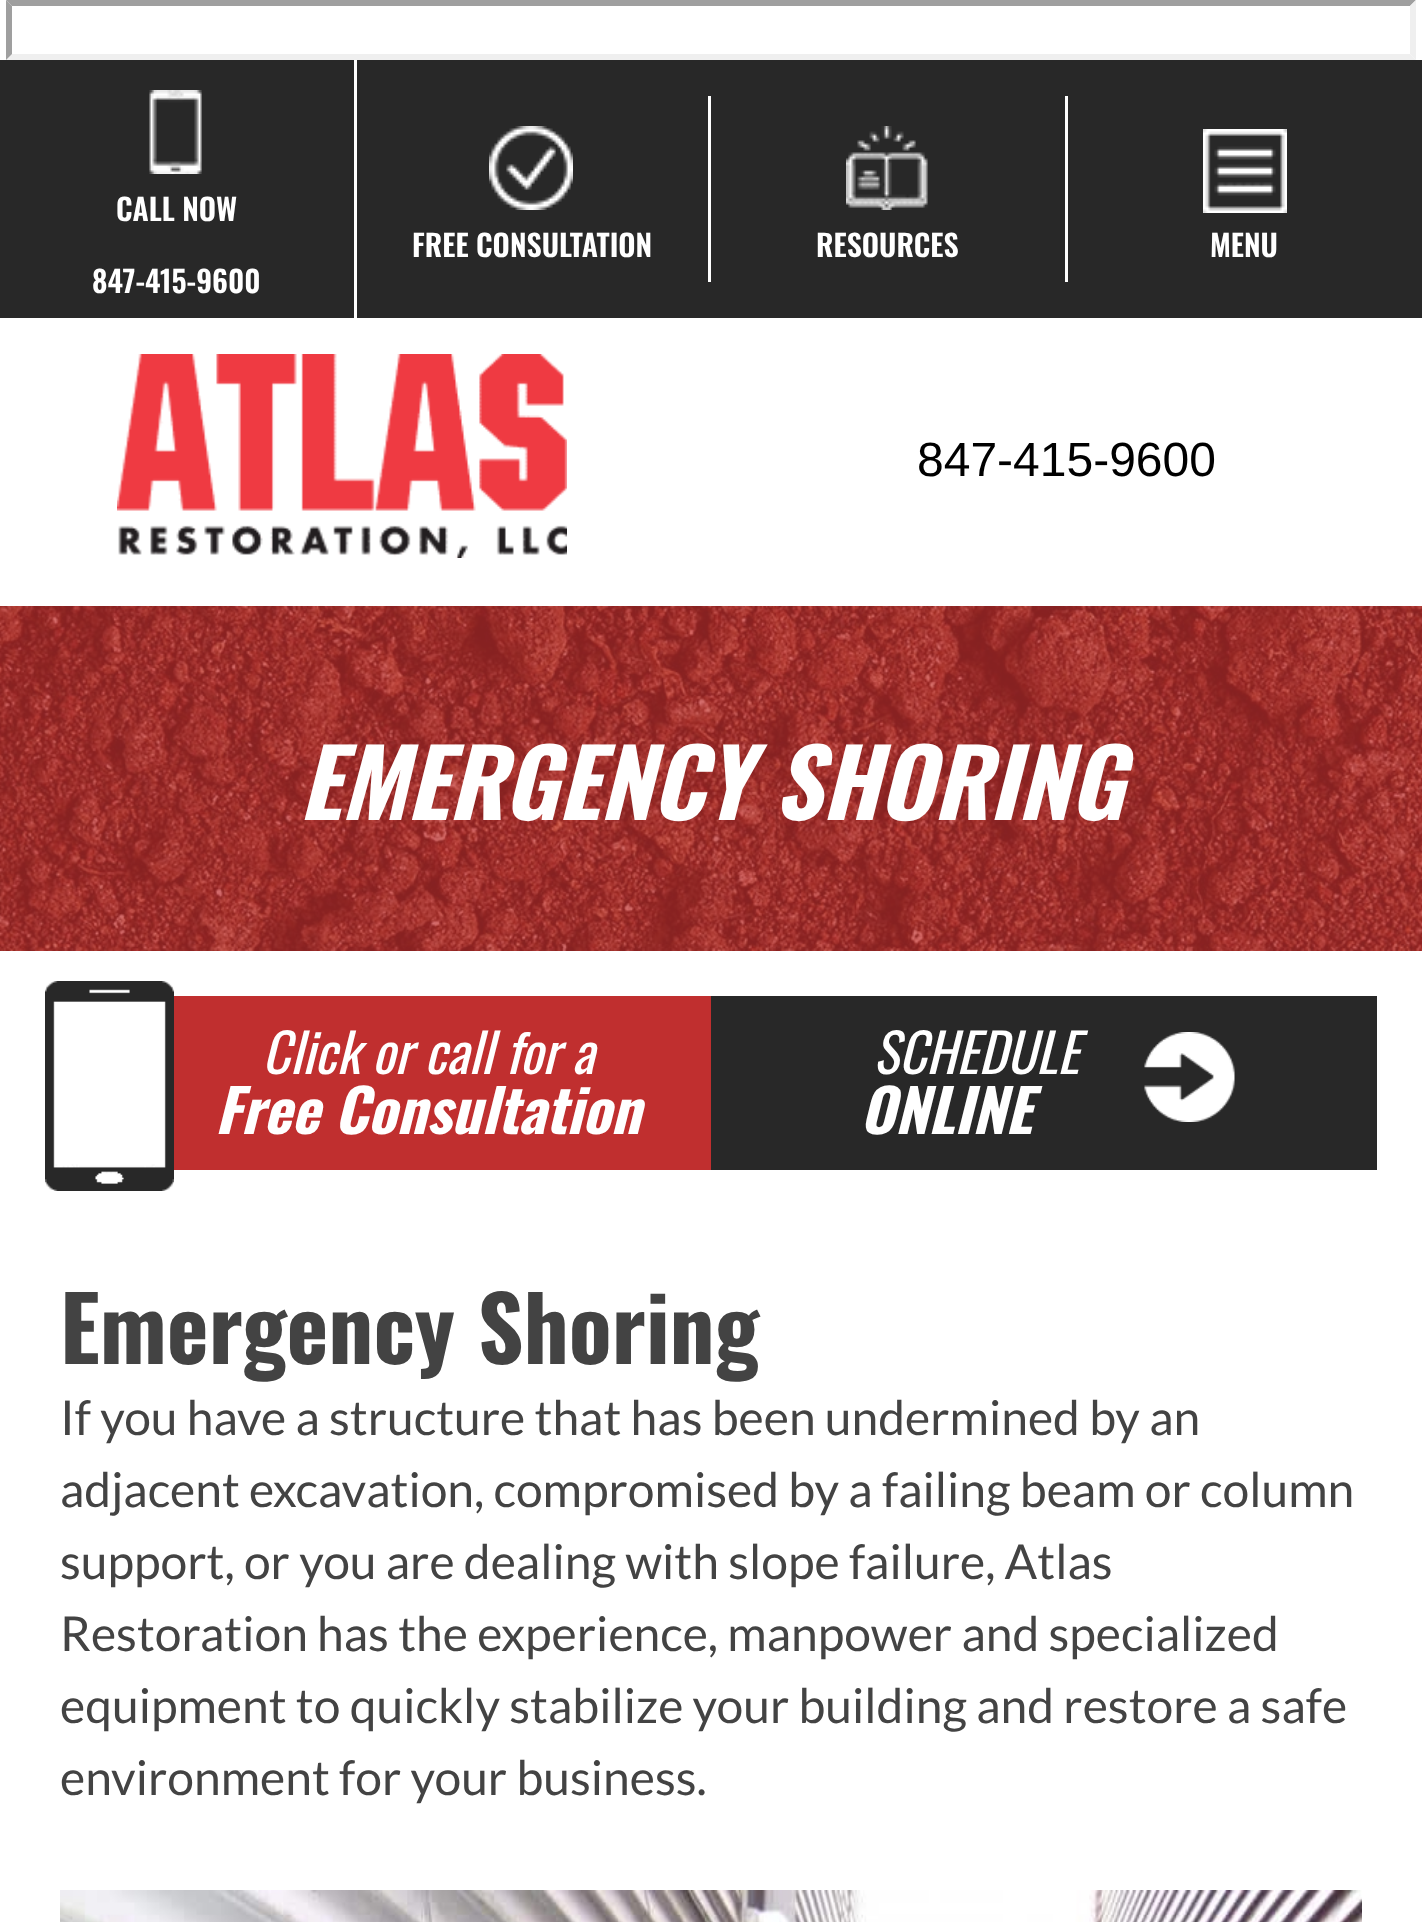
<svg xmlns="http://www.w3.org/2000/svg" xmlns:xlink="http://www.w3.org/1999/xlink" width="1422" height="1922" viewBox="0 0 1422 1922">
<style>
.cls-1{font:600 30px Oswald;fill:#ffffff}
.cls-2{font:48px Liberation Sans;fill:#000000}
.cls-3{font:italic bold 93.25px Oswald;fill:#ffffff}
.cls-4{font:italic 53.75px Oswald;fill:#ffffff}
.cls-5{font:italic bold 59.25px Oswald;fill:#ffffff}
.cls-6{font:bold 89px Oswald;fill:#434343}
.cls-7{font:48px Lato;fill:#434343}
</style>
<rect width="100%" height="100%" fill="#ffffff"/>
<path fill="#9f9f9f" d="M6 0H1416L1410 6H12Z"/>
<path fill="#efefef" d="M1416 0V60L1410 54V6Z"/>
<path fill="#efefef" d="M1416 60H6L12 54H1410Z"/>
<path fill="#9f9f9f" d="M6 60V0L12 6V54Z"/>
<rect fill="#282828" x="0" y="60" width="1422" height="258"/>
<rect fill="#ffffff" x="354" y="60" width="3" height="258"/>
<image xlink:href="image0.png" x="149" y="90" width="53" height="84"/>
<rect fill="#ffffff" x="708" y="96" width="3" height="186"/>
<image xlink:href="image1.png" x="489" y="126" width="84" height="84"/>
<rect fill="#ffffff" x="1065" y="96" width="3" height="186"/>
<image xlink:href="image2.png" x="846" y="126" width="82" height="84"/>
<image xlink:href="image3.png" x="1203" y="129" width="84" height="84"/>
<image xlink:href="image4.png" x="117" y="354" width="450" height="204"/>
<image xlink:href="image5.png" x="0" y="606" width="1422" height="345"/>
<rect fill="#c02f2f" x="174" y="996" width="537" height="174"/>
<image xlink:href="image6.png" x="45" y="981" width="129" height="210"/>
<rect fill="#282828" x="711" y="996" width="666" height="174"/>
<image xlink:href="image7.png" x="1144" y="1032" width="91" height="90"/>
<image xlink:href="image8.png" x="60" y="1890" width="1302" height="32"/>
<text class="cls-1" x="116" y="221">CALL NOW</text>
<text class="cls-1" x="92" y="293">847-415-9600</text>
<text class="cls-1" x="412" y="257">FREE CONSULTATION</text>
<text class="cls-1" x="816" y="257">RESOURCES</text>
<text class="cls-1" x="1210" y="257">MENU</text>
<text class="cls-2" x="917" y="476">847-415-9600</text>
<text class="cls-3" x="299" y="820">EMERGENCY SHORING</text>
<text class="cls-4" x="262" y="1074">Click or call for a</text>
<text class="cls-5" x="215" y="1134">Free Consultation</text>
<text class="cls-4" x="873" y="1074">SCHEDULE</text>
<text class="cls-5" x="860" y="1134">ONLINE</text>
<text class="cls-6" x="60" y="1364">Emergency Shoring</text>
<text class="cls-7"><tspan x="60" y="1435">If you have a structure that has been undermined by an</tspan><tspan x="60" y="1507">adjacent excavation, compromised by a failing beam or column</tspan><tspan x="60" y="1579">support, or you are dealing with slope failure, Atlas</tspan><tspan x="60" y="1651">Restoration has the experience, manpower and specialized</tspan><tspan x="60" y="1723">equipment to quickly stabilize your building and restore a safe</tspan><tspan x="60" y="1795">environment for your business.</tspan></text>
</svg>
